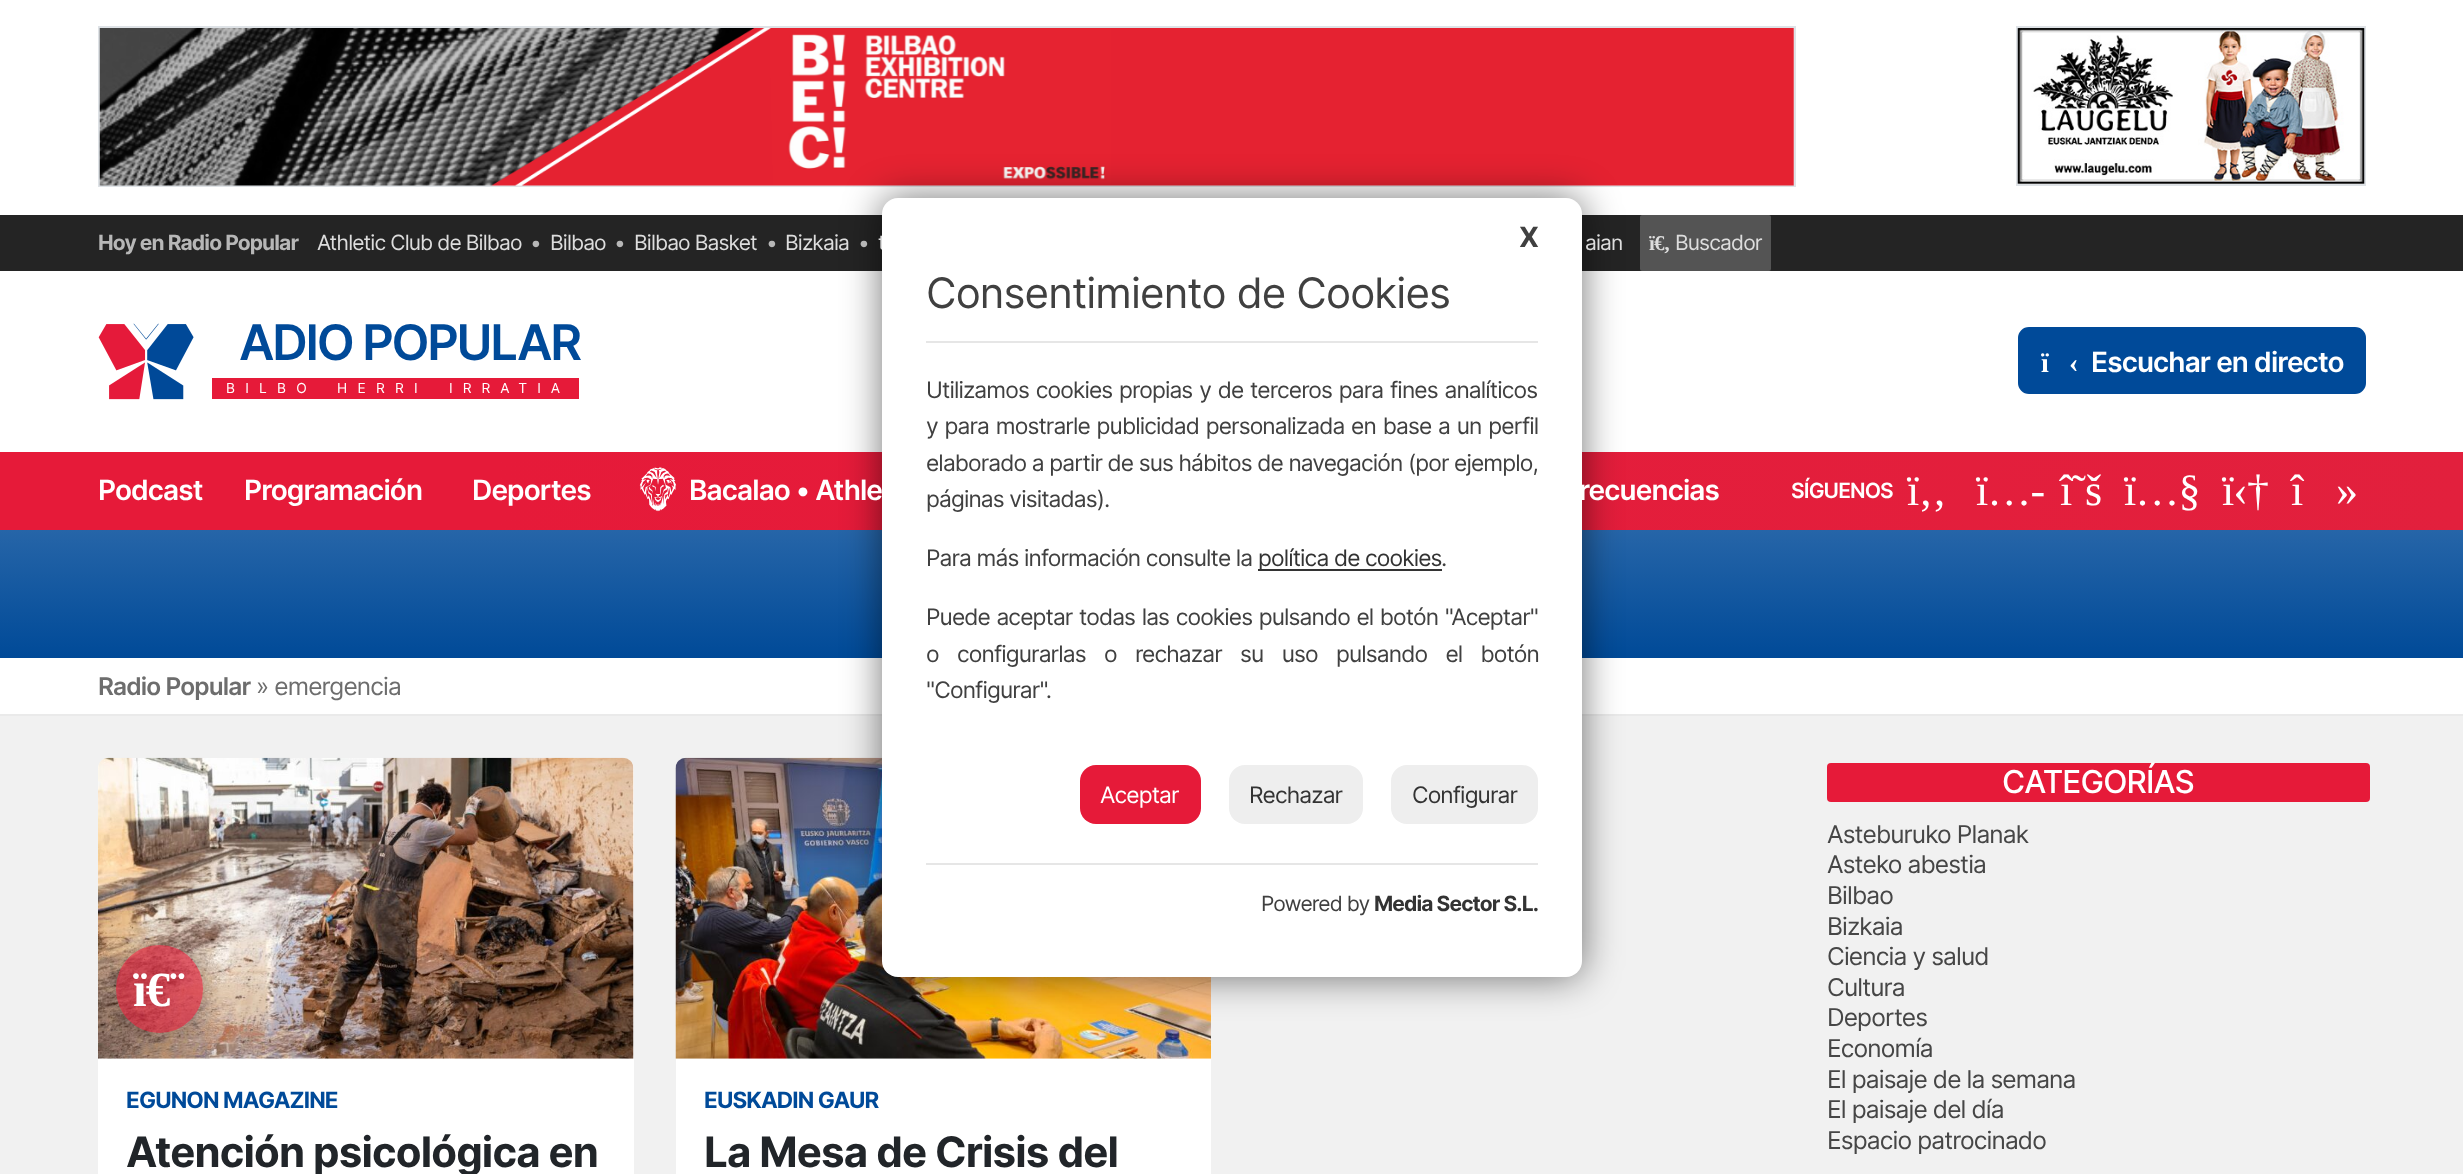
<svg xmlns="http://www.w3.org/2000/svg" xmlns:xlink="http://www.w3.org/1999/xlink" width="2463" height="1174" viewBox="0 0 2463 1174">
<style>
.cls-1{font:bold 21px Inter;letter-spacing:-0.88px;fill:#b7b7b7}
.cls-2{font:21px Inter;letter-spacing:-0.88px;fill:#dddddd}
.cls-3{font:21px Inter;letter-spacing:-0.88px;fill:#b7b7b7}
.cls-4{font:22.75px Inter;letter-spacing:-0.88px;fill:#333333}
.cls-5{font:22.75px Inter;letter-spacing:-0.88px;fill:#ffffff}
.cls-6{font:22.75px Inter;letter-spacing:-0.88px;fill:#404040}
.cls-7{font:42px Inter;letter-spacing:-0.88px;fill:#404040}
.cls-8{font:bold 21px Inter;letter-spacing:-0.88px;fill:#333333}
.cls-9{font:21px Inter;letter-spacing:-0.88px;fill:#404040}
.cls-10{font:bold 28px Inter;letter-spacing:-0.88px;fill:#404040}
.cls-11{font:bold 21px Liberation Serif;letter-spacing:-0.88px;fill:#dddddd}
.cls-12{font:600 49px Inter;letter-spacing:-2.25px;fill:#004a99}
.cls-13{font:13.75px Inter;letter-spacing:10.25px;fill:#ffffff}
.cls-14{font:13.75px Inter;letter-spacing:10px;fill:#ffffff}
.cls-15{font:bold 28px Liberation Serif;letter-spacing:-0.88px;fill:#ffffff}
.cls-16{font:600 28px Inter;letter-spacing:-0.88px;fill:#ffffff}
.cls-17{font:600 21px Inter;letter-spacing:-0.88px;fill:#ffffff}
.cls-18{font:44px Liberation Serif;letter-spacing:-0.88px;fill:#ffffff}
.cls-19{font:600 24.5px Inter;letter-spacing:-0.88px;fill:#6d6d6d}
.cls-20{font:24.5px Inter;letter-spacing:-0.88px;fill:#6d6d6d}
.cls-21{font:bold 49px Liberation Serif;letter-spacing:-0.88px;fill:#ffffff}
.cls-22{font:bold 22.5px Inter;letter-spacing:-0.88px;fill:#004a99}
.cls-23{font:bold 42px Inter;letter-spacing:-0.88px;fill:#212529}
.cls-24{font:500 31.5px Inter;letter-spacing:-0.88px;fill:#ffffff}
.cls-25{font:24.5px Inter;letter-spacing:-0.88px;fill:#464646}
</style>
<defs>
<linearGradient id="g1" gradientUnits="userSpaceOnUse" x1="0" y1="491" x2="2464" y2="491"><stop offset="0.2" stop-color="#e61a39"/><stop offset="1" stop-color="#e2203d"/></linearGradient>
<linearGradient id="g2" gradientUnits="userSpaceOnUse" x1="1232" y1="530" x2="1232" y2="658"><stop offset="0" stop-color="#2665a8"/><stop offset="1" stop-color="#004a98"/></linearGradient>
<clipPath id="clip1"><path d="M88 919H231V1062H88ZM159.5 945C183.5 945 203 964.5 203 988.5V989.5C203 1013.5 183.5 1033 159.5 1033C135.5 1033 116 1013.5 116 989.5V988.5C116 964.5 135.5 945 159.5 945Z" clip-rule="evenodd"/></clipPath>
</defs>
<rect width="100%" height="100%" fill="#ffffff"/>
<rect fill="none" stroke="#dee2e6" stroke-width="2" x="99" y="27" width="1696" height="159"/>
<image xlink:href="image0.png" x="99" y="28" width="1695" height="158"/>
<rect fill="#242424" x="0" y="215" width="2463" height="56"/>
<rect fill="url(#g1)" x="0" y="452" width="2463" height="78"/>
<rect fill="url(#g2)" x="0" y="530" width="2463" height="128"/>
<rect fill="#eaeaea" x="0" y="714" width="2463" height="2"/>
<rect fill="#f1f1f1" x="0" y="716" width="2463" height="458"/>
<rect fill="#ffffff" x="676" y="758" width="535" height="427" rx="11"/>
<image xlink:href="image5.png" x="675" y="757" width="536" height="302"/>
<rect fill="#000000" fill-opacity="0.54" filter="blur(19px)" x="882" y="198" width="700" height="779" rx="16"/>
<rect fill="none" stroke="#dee2e6" stroke-width="2" x="2017" y="27" width="348" height="158"/>
<image xlink:href="image1.png" x="2017" y="28" width="348" height="156"/>
<rect fill="#545454" x="1640" y="215" width="131" height="56" rx="2"/>
<image xlink:href="image2.png" x="98" y="323" width="96" height="77"/>
<rect fill="#e61a39" x="212" y="378" width="367" height="21"/>
<rect fill="#004a99" stroke="#004a99" stroke-width="2" x="2019" y="328" width="346" height="65" rx="10"/>
<image xlink:href="image3.png" x="639" y="467" width="38" height="45"/>
<rect fill="#ffffff" x="98" y="758" width="536" height="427" rx="11"/>
<image xlink:href="image4.png" x="98" y="757" width="536" height="302"/>
<g clip-path="url(#clip1)">
<rect fill="#000000" fill-opacity="0.2" filter="blur(9px)" x="116" y="947" width="87" height="87" rx="43.5"/>
</g>
<rect fill="#e61a39" fill-opacity="0.6" x="116" y="945" width="87" height="88" rx="43.5"/>
<rect fill="#e61a39" x="1827" y="763" width="543" height="39" rx="4"/>
<text class="cls-1" x="98" y="250">Hoy en Radio Popular</text>
<text class="cls-2" x="317" y="250">Athletic Club de Bilbao</text>
<text class="cls-3" x="530" y="250">•</text>
<text class="cls-2" x="550" y="250">Bilbao</text>
<text class="cls-3" x="614" y="250">•</text>
<text class="cls-2" x="634" y="250">Bilbao Basket</text>
<text class="cls-3" x="766" y="250">•</text>
<text class="cls-2" x="785" y="250">Bizkaia</text>
<text class="cls-3" x="858" y="250">•</text>
<text class="cls-2" x="878" y="250">t</text>
<rect fill="#ffffff" x="882" y="198" width="700" height="779" rx="16"/>
<rect fill="#eeeeee" x="1391" y="765" width="147" height="59" rx="16"/>
<text class="cls-4" x="1412" y="803">Configurar</text>
<rect fill="#eeeeee" x="1229" y="765" width="134" height="59" rx="16"/>
<text class="cls-4" x="1249" y="803">Rechazar</text>
<rect fill="#e61a39" x="1080" y="765" width="121" height="59" rx="16"/>
<text class="cls-5" x="1100" y="803">Aceptar</text>
<text class="cls-6" x="926" y="698">"Configurar".</text>
<text class="cls-6" x="926" y="662" word-spacing="12.75">o configurarlas o rechazar su uso pulsando el botón</text>
<text class="cls-6" x="926" y="625" word-spacing="1">Puede aceptar todas las cookies pulsando el botón "Aceptar"</text>
<text class="cls-6" x="1441" y="566">.</text>
<rect fill="#333333" x="1258" y="569" width="184" height="2"/>
<text class="cls-4" x="1258" y="566">política de cookies</text>
<text class="cls-6" x="926" y="566">Para más información consulte la</text>
<text class="cls-6" x="926" y="507">páginas visitadas).</text>
<text class="cls-6" x="926" y="471">elaborado a partir de sus hábitos de navegación (por ejemplo,</text>
<text class="cls-6" x="926" y="434" word-spacing="1.25">y para mostrarle publicidad personalizada en base a un perfil</text>
<text class="cls-6" x="926" y="398" word-spacing="1.25">Utilizamos cookies propias y de terceros para fines analíticos</text>
<text class="cls-7" x="926" y="308">Consentimiento de Cookies</text>
<text class="cls-8" x="1374" y="911">Media Sector S.L.</text>
<text class="cls-9" x="1261" y="911">Powered by</text>
<text class="cls-10" x="1519" y="247">X</text>
<rect fill="#e6e6e6" x="926" y="863" width="612" height="2"/>
<rect fill="#e6e6e6" x="926" y="341" width="612" height="2"/>
<text class="cls-2" x="1585" y="250">aian</text>
<text class="cls-11" x="1649" y="250">ï€‚</text>
<text class="cls-2" x="1675" y="250">Buscador</text>
<text class="cls-12" x="239" y="360">ADIO POPULAR</text>
<text class="cls-13" x="226" y="393">BILBO</text>
<text class="cls-13" x="337" y="393">HERRI</text>
<text class="cls-14" x="449" y="393">IRRATIA</text>
<text class="cls-15" x="2041" y="372">ï</text>
<text class="cls-15" x="2069" y="372">‹</text>
<text class="cls-16" x="2091" y="372">Escuchar en directo</text>
<text class="cls-16" x="98" y="500">Podcast</text>
<text class="cls-16" x="244" y="500">Programación</text>
<text class="cls-16" x="472" y="500">Deportes</text>
<text class="cls-16" x="689" y="500">Bacalao • Athle</text>
<text class="cls-16" x="1579" y="500">recuencias</text>
<text class="cls-17" x="1791" y="498">SÍGUENOS</text>
<text class="cls-18" x="1907" y="505">ï‚‚</text>
<text class="cls-18" x="1976" y="505">ï…-</text>
<text class="cls-18" x="2060" y="505">î˜š</text>
<text class="cls-18" x="2124" y="505">ï…§</text>
<text class="cls-18" x="2222" y="505">ï‹†</text>
<text class="cls-18" x="2291" y="505">î</text>
<text class="cls-18" x="2336" y="505">»</text>
<text class="cls-19" x="98" y="695">Radio Popular</text>
<text class="cls-20" x="256" y="695">» emergencia</text>
<text class="cls-21" x="133" y="1006">ï€¨</text>
<text class="cls-22" x="126" y="1108">EGUNON MAGAZINE</text>
<text class="cls-23" x="126" y="1167">Atención psicológica en</text>
<text class="cls-22" x="704" y="1108">EUSKADIN GAUR</text>
<text class="cls-23" x="704" y="1167">La Mesa de Crisis del</text>
<text class="cls-24" x="2002" y="793">CATEGORÍAS</text>
<text class="cls-25"><tspan x="1827" y="843">Asteburuko Planak</tspan><tspan x="1827" y="873">Asteko abestia</tspan><tspan x="1827" y="904">Bilbao</tspan><tspan x="1827" y="935">Bizkaia</tspan><tspan x="1827" y="965">Ciencia y salud</tspan><tspan x="1827" y="996">Cultura</tspan><tspan x="1827" y="1026">Deportes</tspan><tspan x="1827" y="1057">Economía</tspan><tspan x="1827" y="1088">El paisaje de la semana</tspan><tspan x="1827" y="1118">El paisaje del día</tspan><tspan x="1827" y="1149">Espacio patrocinado</tspan></text>
</svg>
